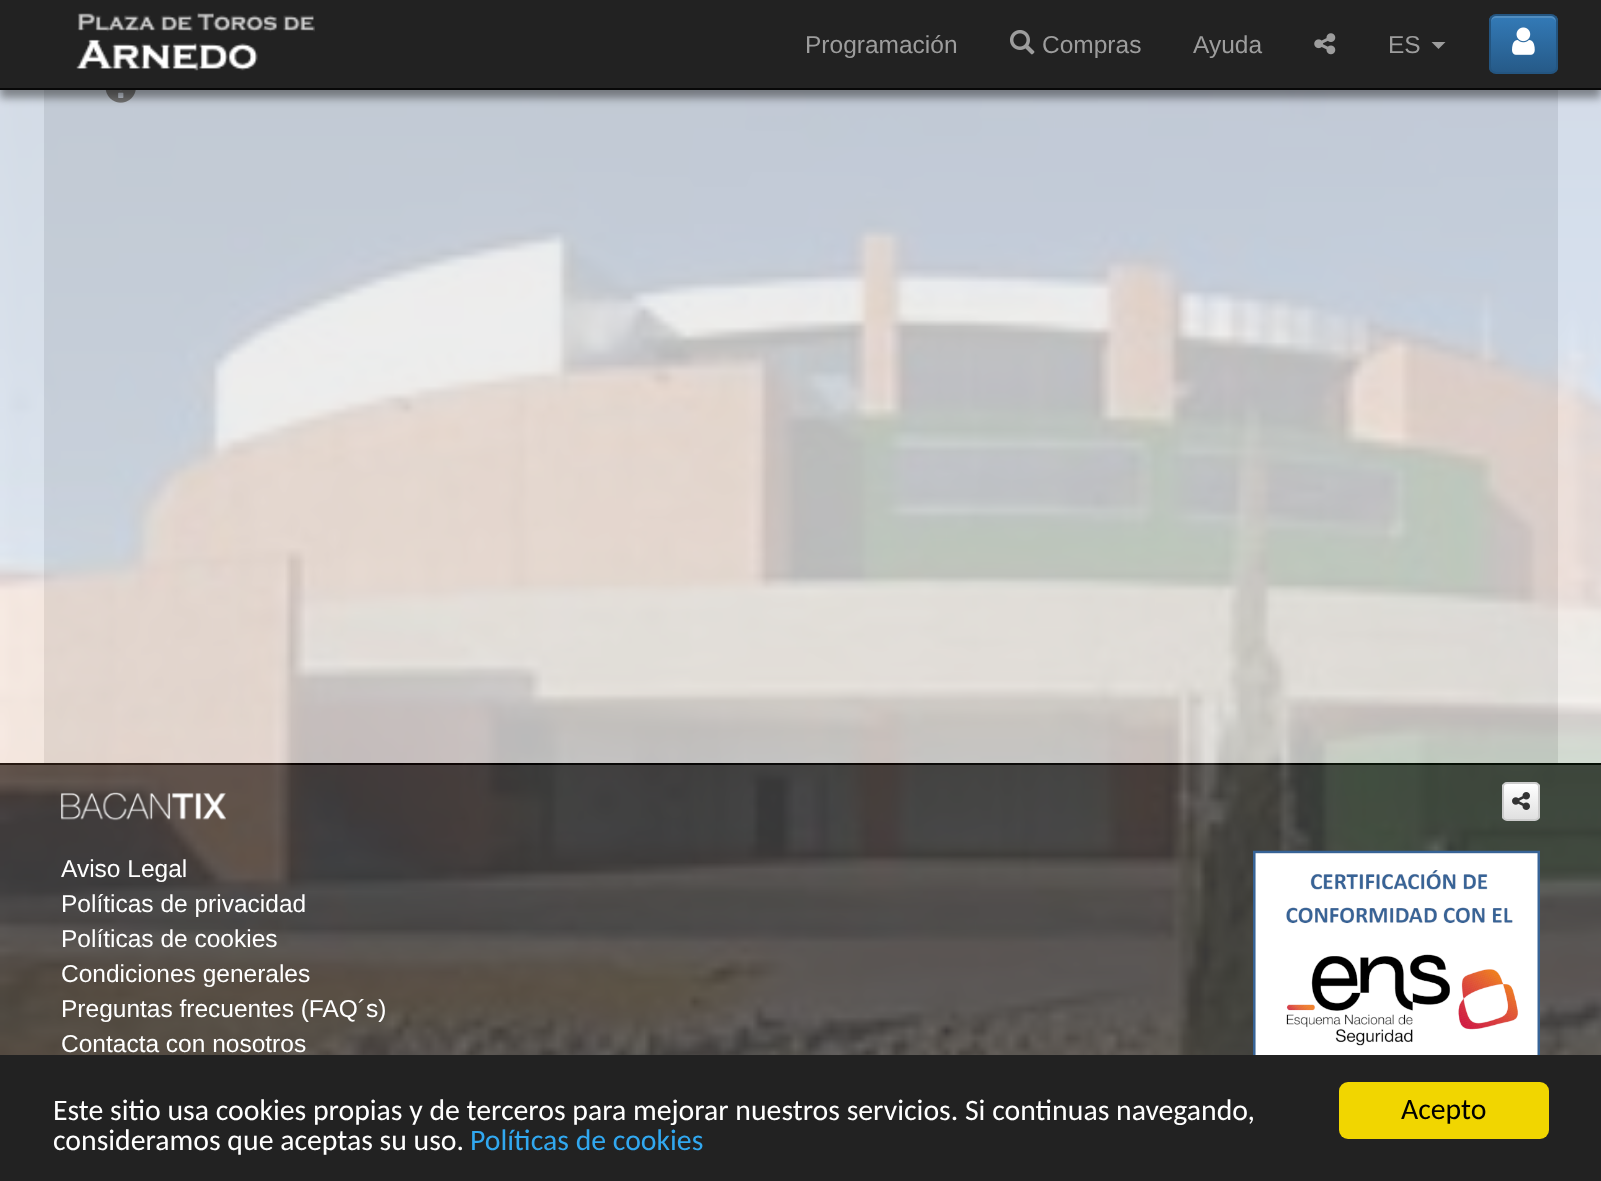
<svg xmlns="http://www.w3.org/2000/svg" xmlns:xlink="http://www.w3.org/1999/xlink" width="1601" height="1181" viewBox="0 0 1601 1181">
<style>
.cls-1{font:24.5px Liberation Sans;fill:#9d9d9d}
.cls-2{font:24.5px Liberation Sans;fill:#ffffff}
.cls-3{font:29.75px Carlito;fill:#ffffff}
.cls-4{font:29.75px Carlito;fill:#31a8f0}
.cls-5{font:29.75px Carlito;fill:#000000}
</style>
<defs>
<clipPath id="clip1"><rect x="1489" y="14" width="69" height="60" rx="7"/></clipPath>
<linearGradient id="g1" gradientUnits="userSpaceOnUse" x1="1523" y1="16" x2="1523" y2="72"><stop offset="0" stop-color="#337ab7"/><stop offset="1" stop-color="#265a88"/></linearGradient>
<clipPath id="clip2"><rect x="1502" y="782" width="38" height="39" rx="5"/></clipPath>
<linearGradient id="g2" gradientUnits="userSpaceOnUse" x1="1521" y1="784" x2="1521" y2="819"><stop offset="0" stop-color="#ffffff"/><stop offset="1" stop-color="#e0e0e0"/></linearGradient>
</defs>
<rect width="100%" height="100%" fill="#ffffff"/>
<rect fill="#e9e9e9" x="44" y="90" width="1514" height="673"/>
<rect fill="#464646" x="0" y="765" width="1601" height="290"/>
<rect fill="#000000" x="0" y="763" width="1601" height="2"/>
<image xlink:href="image4.png" x="0" y="90" width="1601" height="965"/>
<image xlink:href="image5.png" x="105" y="90" width="31" height="13"/>
<rect fill="#000000" fill-opacity="0.4" filter="blur(4.5px)" x="0" y="9" width="1601" height="89"/>
<rect fill="#222222" x="0" y="0" width="1601" height="88"/>
<rect fill="#080808" x="0" y="88" width="1601" height="2"/>
<image xlink:href="image0.png" x="76" y="12" width="239" height="59"/>
<image xlink:href="image1.png" x="1010" y="30" width="25" height="25"/>
<image xlink:href="image2.png" x="1314" y="33" width="22" height="22"/>
<path fill="#9d9d9d" d="M1431.5 42H1445.5L1438.5 49Z"/>
<g clip-path="url(#clip1)">
<rect fill="url(#g1)" x="1489" y="16" width="69" height="56"/>
</g>
<path fill="#ffffff" fill-opacity="0.15" d="M1496 18H1550C1553 18 1556 20 1556 23C1556 14 1550 16 1542 16H1505C1497 16 1491 14 1491 23C1491 20 1493 18 1496 18Z"/>
<rect fill="none" stroke="#245580" stroke-width="2" x="1490" y="15" width="67" height="58" rx="6"/>
<image xlink:href="image3.png" x="1512" y="27" width="23" height="28"/>
<image xlink:href="image6.png" x="61" y="792" width="165" height="29"/>
<g clip-path="url(#clip2)">
<rect fill="url(#g2)" x="1502" y="784" width="38" height="35"/>
</g>
<rect fill="none" stroke="#cccccc" stroke-width="2" x="1503" y="783" width="36" height="37" rx="4"/>
<image xlink:href="image7.png" x="1512" y="792" width="18" height="18"/>
<image xlink:href="image8.png" x="1253" y="850" width="287" height="205"/>
<rect fill="#222222" x="0" y="1055" width="1601" height="126"/>
<rect fill="#f1d600" x="1339" y="1082" width="210" height="57" rx="9"/>
<text class="cls-1" x="805" y="53">Programación</text>
<text class="cls-1" x="1042" y="53">Compras</text>
<text class="cls-1" x="1193" y="53">Ayuda</text>
<text class="cls-1" x="1388" y="53">ES</text>
<text class="cls-2"><tspan x="61" y="877">Aviso Legal</tspan><tspan x="61" y="912">Políticas de privacidad</tspan><tspan x="61" y="947">Políticas de cookies</tspan><tspan x="61" y="982">Condiciones generales</tspan><tspan x="61" y="1017">Preguntas frecuentes (FAQ´s)</tspan><tspan x="61" y="1052">Contacta con nosotros</tspan></text>
<text class="cls-3"><tspan x="53" y="1120">Este sitio usa cookies propias y de terceros para mejorar nuestros servicios. Si continuas navegando,</tspan><tspan x="53" y="1150">consideramos que aceptas su uso.</tspan></text>
<text class="cls-4" x="470" y="1150">Políticas de cookies</text>
<text class="cls-5" x="1401" y="1119">Acepto</text>
</svg>
